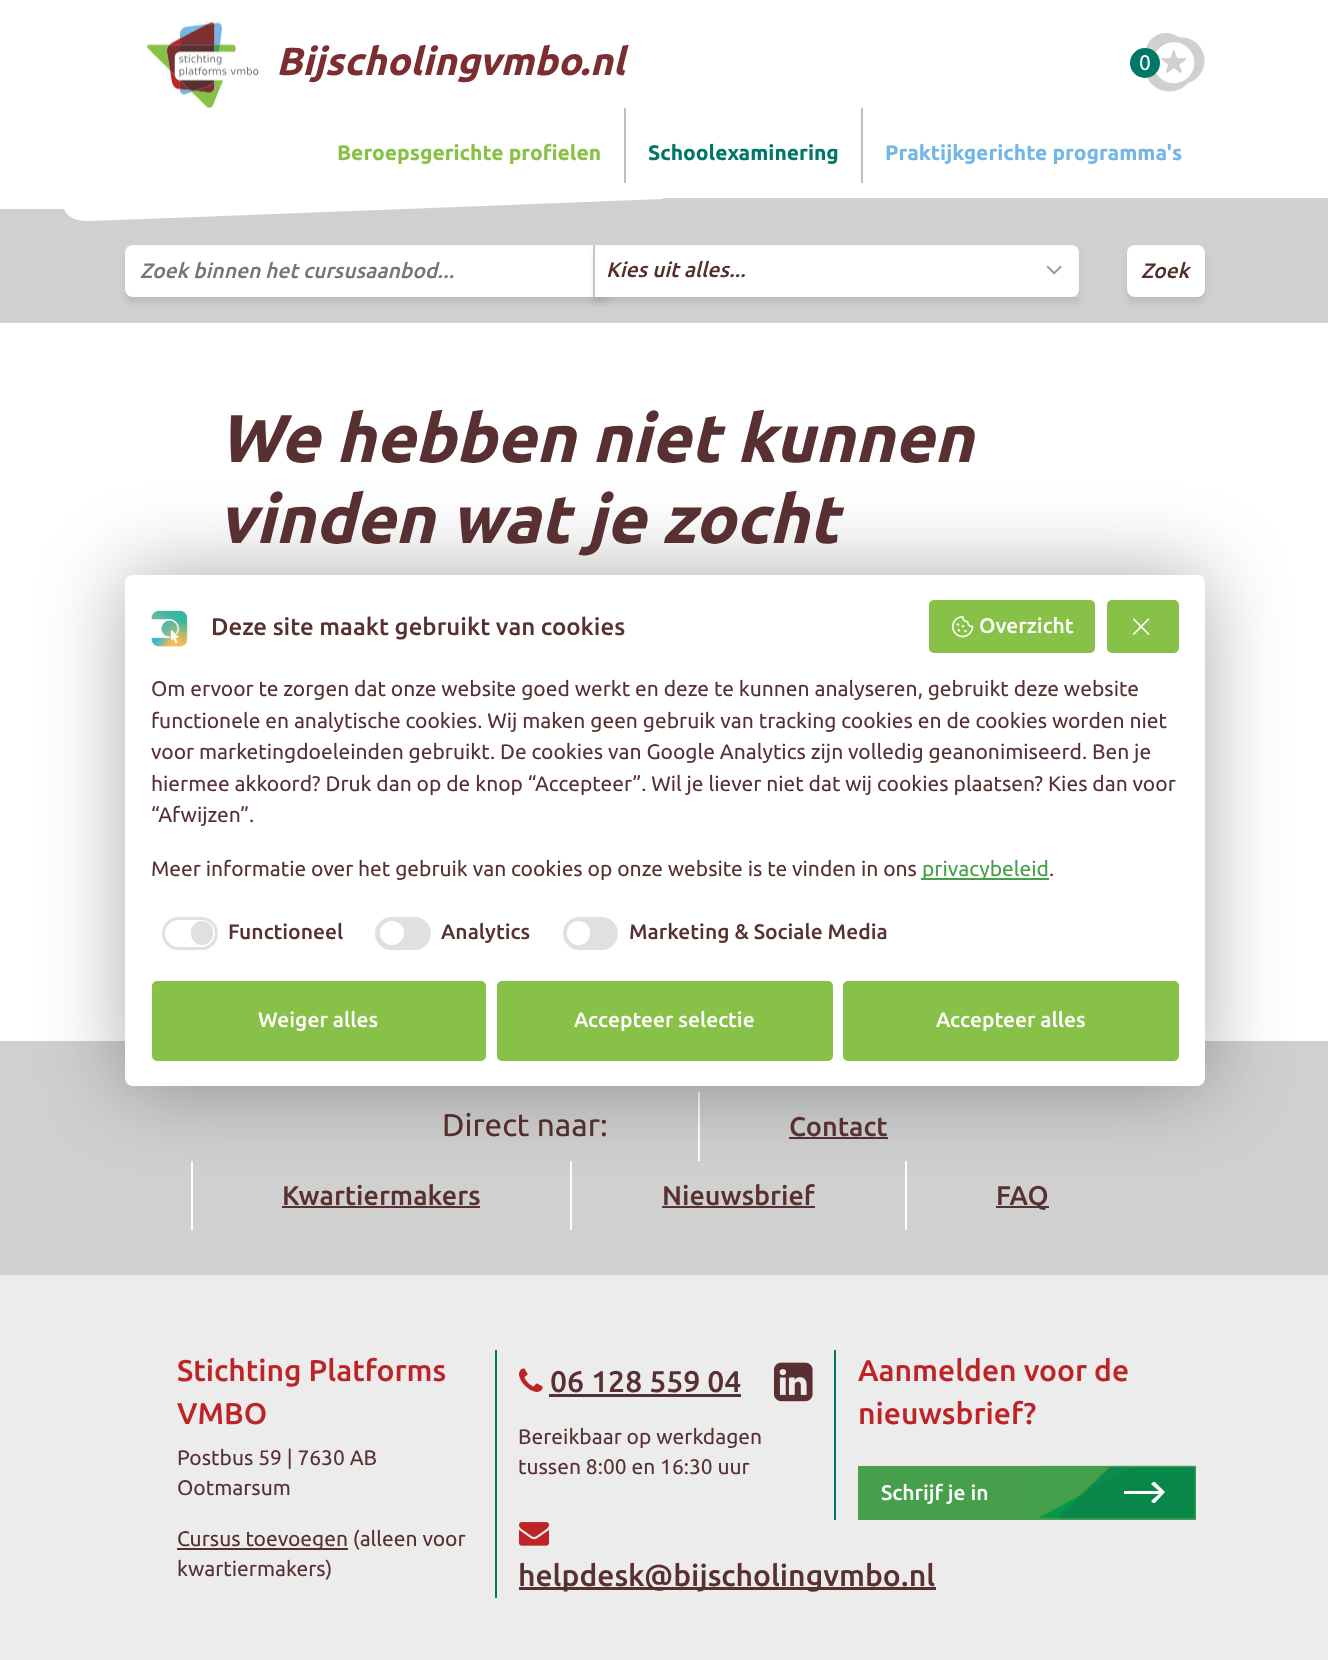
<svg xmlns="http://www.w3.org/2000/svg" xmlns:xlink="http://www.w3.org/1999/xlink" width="1328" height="1660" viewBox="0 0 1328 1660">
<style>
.cls-1{font:italic bold 39px Ubuntu;fill:#7b2d30}
.cls-2{font:21px Ubuntu;fill:#ffffff}
.cls-3{font:bold 21px Ubuntu;fill:#88c147}
.cls-4{font:bold 21px Ubuntu;fill:#007767}
.cls-5{font:bold 21px Ubuntu;fill:#75b6e4}
.cls-6{font:italic 500 21px Ubuntu;fill:#757575}
.cls-7{font:italic 500 21px Ubuntu;fill:#542e2a}
.cls-8{font:italic bold 67.5px Ubuntu;fill:#583032}
.cls-9{font:500 24px Ubuntu;fill:#583032}
.cls-10{font:500 21px Ubuntu;fill:#ffffff}
.cls-11{font:21px Ubuntu;fill:#583032}
.cls-12{font:21px Ubuntu;fill:#459f4b}
.cls-13{font:500 21px Ubuntu;fill:#583032}
.cls-14{font:31.5px Ubuntu;fill:#542e2a}
.cls-15{font:500 27px Ubuntu;fill:#583032}
.cls-16{font:500 30px Ubuntu;fill:#bc2427}
.cls-17{font:500 30px Ubuntu;fill:#583032}
</style>
<defs>
<clipPath id="clip1"><path d="M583 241H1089V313H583ZM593 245H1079V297H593Z" clip-rule="evenodd"/></clipPath>
<clipPath id="clip2"><rect x="1124" y="1482" width="42" height="21"/></clipPath>
</defs>
<rect width="100%" height="100%" fill="#ffffff"/>
<image xlink:href="image0.png" x="147" y="22" width="112" height="87"/>
<image xlink:href="image1.png" x="1145" y="33" width="60" height="59"/>
<circle fill="#007767" cx="1145" cy="63" r="15"/>
<rect fill="#bcbec0" x="624" y="108" width="2" height="75"/>
<rect fill="#bcbec0" x="861" y="108" width="2" height="75"/>
<rect fill="#d0d0d0" x="0" y="198" width="1328" height="125"/>
<path fill="#ffffff" d="M91 221L663 199V198H-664V209H64C69 223 91 221 91 221Z"/>
<rect fill="#000000" fill-opacity="0.09" filter="blur(3px)" x="125" y="251" width="486" height="52" rx="8"/>
<rect fill="#ffffff" x="125" y="245" width="486" height="52" rx="8"/>
<g clip-path="url(#clip1)">
<rect fill="#000000" fill-opacity="0.09" filter="blur(3px)" x="593" y="251" width="486" height="52"/>
</g>
<path fill="#ffffff" d="M593 245H1071C1075.5 245 1079 248.5 1079 253V289C1079 293.5 1075.5 297 1071 297H593Z"/>
<rect fill="#c6c6c5" x="593" y="245" width="2" height="52"/>
<image xlink:href="image2.png" x="1046" y="265" width="16" height="10"/>
<rect fill="#000000" fill-opacity="0.09" filter="blur(3px)" x="1127" y="251" width="78" height="52" rx="8"/>
<rect fill="#ffffff" x="1127" y="245" width="78" height="52" rx="8"/>
<rect fill="#d0d0d0" x="0" y="1041" width="1328" height="234"/>
<rect fill="#ffffff" x="698" y="1092" width="2" height="69"/>
<rect fill="#583032" x="789" y="1137" width="99" height="2"/>
<rect fill="#ffffff" x="191" y="1161" width="2" height="69"/>
<rect fill="#583032" x="282" y="1206" width="198" height="2"/>
<rect fill="#ffffff" x="570" y="1161" width="2" height="69"/>
<rect fill="#583032" x="662" y="1206" width="153" height="2"/>
<rect fill="#ffffff" x="905" y="1161" width="2" height="69"/>
<rect fill="#583032" x="996" y="1206" width="53" height="2"/>
<rect fill="#000000" fill-opacity="0.33" filter="blur(42px)" x="125" y="575" width="1080" height="511" rx="8"/>
<rect fill="#ffffff" x="125" y="575" width="1080" height="511" rx="8"/>
<image xlink:href="image3.png" x="151" y="610" width="37" height="37"/>
<rect fill="#88c147" x="929" y="600" width="166" height="53" rx="5"/>
<image xlink:href="image4.png" x="952" y="616" width="22" height="22"/>
<rect fill="#88c147" x="1107" y="600" width="72" height="53" rx="5"/>
<image xlink:href="image5.png" x="1133" y="618" width="17" height="17"/>
<rect fill="#459f4b" x="921" y="878" width="128" height="2"/>
<rect fill="none" stroke="#e0e0e0" stroke-width="3" x="163.5" y="918.5" width="53" height="30" rx="15"/>
<rect fill="#e0e0e0" x="191" y="921" width="22" height="24" rx="11"/>
<rect fill="#e0e0e0" stroke="#e0e0e0" stroke-width="3" x="376.5" y="918.5" width="53" height="30" rx="15"/>
<circle fill="#ffffff" cx="392" cy="933" r="12"/>
<rect fill="#e0e0e0" stroke="#e0e0e0" stroke-width="3" x="564.5" y="918.5" width="52" height="30" rx="15"/>
<rect fill="#ffffff" x="567" y="921" width="23" height="24" rx="11.5"/>
<rect fill="#88c147" stroke="#88c147" stroke-width="3" x="153.5" y="982.5" width="331" height="77" rx="3.5"/>
<rect fill="#88c147" stroke="#88c147" stroke-width="3" x="498.5" y="982.5" width="333" height="77" rx="3.5"/>
<rect fill="#88c147" stroke="#88c147" stroke-width="3" x="844.5" y="982.5" width="333" height="77" rx="3.5"/>
<rect fill="#ececec" x="0" y="1275" width="1328" height="385"/>
<rect fill="#583032" x="177" y="1548" width="171" height="2"/>
<rect fill="#007767" x="495" y="1350" width="2" height="248"/>
<image xlink:href="image6.png" x="519" y="1368" width="24" height="24"/>
<rect fill="#583032" x="549" y="1394" width="192" height="3"/>
<image xlink:href="image7.png" x="774" y="1362" width="39" height="40"/>
<image xlink:href="image8.png" x="519" y="1522" width="30" height="24"/>
<rect fill="#583032" x="519" y="1587" width="417" height="3"/>
<rect fill="#007767" x="834" y="1350" width="2" height="170"/>
<rect fill="#459f4b" x="858" y="1466" width="338" height="54"/>
<image xlink:href="image9.png" x="1037" y="1465" width="159" height="55"/>
<g clip-path="url(#clip2)">
<path fill="#ffffff" d="M1151 1484L1154 1481L1165 1492L1154 1504L1151 1501L1159 1494H1124V1491H1159L1151 1484"/>
</g>
<text class="cls-1" x="276" y="75">Bijscholingvmbo.nl</text>
<text class="cls-2" x="1139" y="70">0</text>
<text class="cls-3" x="337" y="160">Beroepsgerichte profielen</text>
<text class="cls-4" x="648" y="160">Schoolexaminering</text>
<text class="cls-5" x="885" y="160">Praktijkgerichte programma's</text>
<text class="cls-6" x="140" y="278">Zoek binnen het cursusaanbod...</text>
<text class="cls-7" x="606" y="277">Kies uit alles...</text>
<text class="cls-7" x="1141" y="278">Zoek</text>
<text class="cls-8"><tspan x="218" y="462">We hebben niet kunnen</tspan><tspan x="218" y="543">vinden wat je zocht</tspan></text>
<text class="cls-9" x="211" y="635">Deze site maakt gebruikt van cookies</text>
<text class="cls-10" x="979" y="633">Overzicht</text>
<text class="cls-11"><tspan x="151" y="696">Om ervoor te zorgen dat onze website goed werkt en deze te kunnen analyseren, gebruikt deze website</tspan><tspan x="151" y="728">functionele en analytische cookies. Wij maken geen gebruik van tracking cookies en de cookies worden niet</tspan><tspan x="151" y="759">voor marketingdoeleinden gebruikt. De cookies van Google Analytics zijn volledig geanonimiseerd. Ben je</tspan><tspan x="151" y="791">hiermee akkoord? Druk dan op de knop “Accepteer”. Wil je liever niet dat wij cookies plaatsen? Kies dan voor</tspan><tspan x="151" y="822">“Afwijzen”.</tspan></text>
<text class="cls-11" x="151" y="876">Meer informatie over het gebruik van cookies op onze website is te vinden in ons</text>
<text class="cls-12" x="922" y="876">privacybeleid</text>
<text class="cls-11" x="1049" y="876">.</text>
<text class="cls-13" x="228" y="939">Functioneel</text>
<text class="cls-13" x="441" y="939">Analytics</text>
<text class="cls-13" x="629" y="939">Marketing &amp; Sociale Media</text>
<text class="cls-10" x="258" y="1027">Weiger alles</text>
<text class="cls-10" x="574" y="1027">Accepteer selectie</text>
<text class="cls-10" x="936" y="1027">Accepteer alles</text>
<text class="cls-14" x="442" y="1136">Direct naar:</text>
<text class="cls-15" x="789" y="1136">Contact</text>
<text class="cls-15" x="282" y="1205">Kwartiermakers</text>
<text class="cls-15" x="662" y="1205">Nieuwsbrief</text>
<text class="cls-15" x="996" y="1205">FAQ</text>
<text class="cls-16"><tspan x="177" y="1381">Stichting Platforms</tspan><tspan x="177" y="1424">VMBO</tspan></text>
<text class="cls-11"><tspan x="177" y="1465">Postbus 59 | 7630 AB</tspan><tspan x="177" y="1495">Ootmarsum</tspan></text>
<text class="cls-11"><tspan x="177" y="1546">Cursus toevoegen (alleen voor</tspan><tspan x="177" y="1576">kwartiermakers)</tspan></text>
<text class="cls-17" x="550" y="1392">06 128 559 04</text>
<text class="cls-11"><tspan x="518" y="1444">Bereikbaar op werkdagen</tspan><tspan x="518" y="1474">tussen 8:00 en 16:30 uur</tspan></text>
<text class="cls-17" x="518" y="1586">helpdesk@bijscholingvmbo.nl</text>
<text class="cls-16"><tspan x="858" y="1381">Aanmelden voor de</tspan><tspan x="858" y="1424">nieuwsbrief?</tspan></text>
<text class="cls-10" x="881" y="1500">Schrijf je in</text>
</svg>
